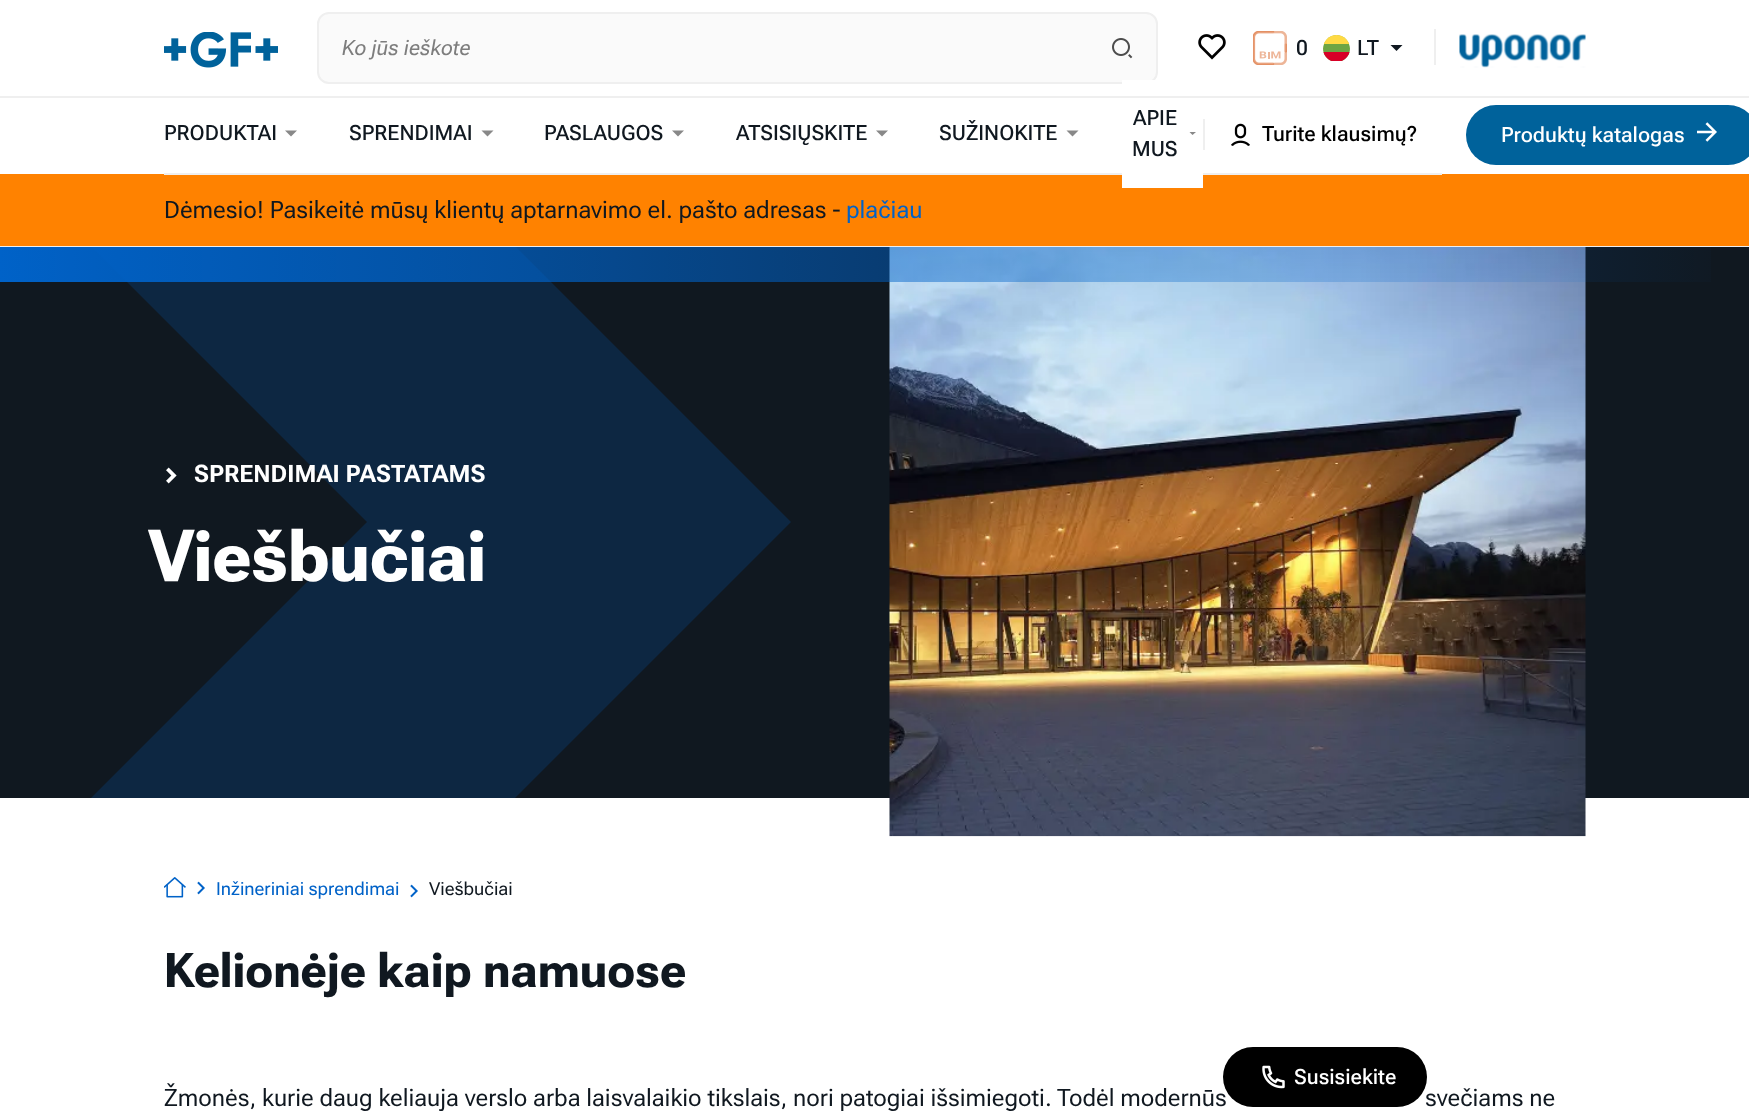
<svg xmlns="http://www.w3.org/2000/svg" xmlns:xlink="http://www.w3.org/1999/xlink" width="1749" height="1119" viewBox="0 0 1749 1119">
<style>
.cls-1{font:italic 21px Roboto Flex;fill:#7d7d7d}
.cls-2{font:500 21px Roboto Flex;fill:#101820}
.cls-3{font:500 21px Roboto Flex;fill:#000000}
.cls-4{font:500 21px Roboto Flex;fill:#ffffff}
.cls-5{font:24px 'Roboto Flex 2';fill:#101820}
.cls-6{font:24px 'Roboto Flex 2';fill:#0062c8}
.cls-7{font:bold 24px Roboto Flex;fill:#ffffff}
.cls-8{font:bold 72px 'Roboto Flex 2';fill:#ffffff}
.cls-9{font:18px Roboto Flex;fill:#0062c8}
.cls-10{font:18px Roboto Flex;fill:#101820}
.cls-11{font:bold 48px 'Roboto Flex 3';fill:#101820}
</style>
<defs>
<clipPath id="clip1"><rect x="0" y="246" width="1749" height="552"/></clipPath>
<clipPath id="clip2"><rect x="1323" y="35" width="27" height="27" rx="13.5"/></clipPath>
<linearGradient id="g1" gradientUnits="userSpaceOnUse" x1="1749" y1="264" x2="0" y2="264"><stop offset="0" stop-color="#0062c8" stop-opacity="0"/><stop offset="1" stop-color="#0062c8"/></linearGradient>
</defs>
<rect width="100%" height="100%" fill="#ffffff"/>
<rect fill="#101820" x="0" y="247" width="1749" height="551"/>
<g clip-path="url(#clip1)">
<path fill="#0d2742" d="M181-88L791 522H367L-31 124Z"/>
</g>
<rect fill="#efefef" x="0" y="246" width="1749" height="1"/>
<image xlink:href="image0.png" x="164" y="32" width="114" height="36"/>
<rect fill="#fafafa" stroke="#efefef" stroke-width="2" x="318" y="13" width="839" height="70" rx="11"/>
<image xlink:href="image1.png" x="1112" y="38" width="21" height="21"/>
<image xlink:href="image2.png" x="1198" y="34" width="28" height="26"/>
<image xlink:href="image3.png" x="1253" y="31" width="34" height="34"/>
<g clip-path="url(#clip2)">
<path fill="#6da544" d="M1336.5 35C1344 35 1350 41 1350 48.5V61H1323V48.5C1323 41 1329 35 1336.5 35Z"/>
<rect fill="#ffda44" x="1323" y="35" width="27" height="9"/>
<rect fill="#d80027" x="1323" y="52" width="27" height="9"/>
</g>
<path fill="#101820" d="M1390.5 45H1402.5L1396.5 51Z"/>
<rect fill="#efefef" x="1434" y="29" width="2" height="36"/>
<image xlink:href="image4.png" x="1459" y="34" width="127" height="34"/>
<rect fill="#ff8200" x="0" y="174" width="1749" height="72"/>
<rect fill="#efefef" x="164" y="173" width="1278" height="2"/>
<rect fill="#ffffff" x="1122" y="80" width="81" height="108"/>
<rect fill="#efefef" x="0" y="96" width="1749" height="2"/>
<path fill="#888888" d="M285 130.5H297L291 136.5Z"/>
<path fill="#888888" d="M481.5 130.5H493.5L487.5 136.5Z"/>
<path fill="#888888" d="M672 130.5H684L678 136.5Z"/>
<path fill="#888888" d="M876 130.5H888L882 136.5Z"/>
<path fill="#888888" d="M1066.5 130.5H1078.5L1072.5 136.5Z"/>
<path fill="#888888" d="M1189.5 132H1196L1192.5 135Z"/>
<rect fill="#efefef" x="1203" y="119" width="2" height="31"/>
<image xlink:href="image5.png" x="1231" y="123" width="19" height="23"/>
<rect fill="#00629b" x="1466" y="105" width="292" height="60" rx="30"/>
<image xlink:href="image6.png" x="1697" y="122" width="20" height="20"/>
<g clip-path="url(#clip1)">
<path fill="#0d2742" d="M791 522L181 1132L-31 920L367 522Z"/>
</g>
<image xlink:href="image9.png" x="889" y="247" width="697" height="590"/>
<rect fill="url(#g1)" x="0" y="247" width="1711" height="35"/>
<image xlink:href="image8.png" x="166" y="467" width="11" height="17"/>
<image xlink:href="image10.png" x="164" y="877" width="22" height="21"/>
<image xlink:href="image11.png" x="197" y="881" width="8" height="14"/>
<image xlink:href="image11.png" x="410" y="884" width="8" height="14"/>
<text class="cls-1" x="342" y="55">Ko jūs ieškote</text>
<text class="cls-2" x="1296" y="55">0</text>
<text class="cls-2" x="1357" y="55">LT</text>
<text class="cls-2" x="164" y="140">PRODUKTAI</text>
<text class="cls-2" x="349" y="140">SPRENDIMAI</text>
<text class="cls-2" x="544" y="140">PASLAUGOS</text>
<text class="cls-2" x="736" y="140">ATSISIŲSKITE</text>
<text class="cls-2" x="939" y="140">SUŽINOKITE</text>
<text class="cls-2" x="1133" y="125">APIE</text>
<text class="cls-2" x="1132" y="156">MUS</text>
<text class="cls-3" x="1262" y="141">Turite klausimų?</text>
<text class="cls-4" x="1501" y="142">Produktų katalogas</text>
<text class="cls-5" x="164" y="218">Dėmesio! Pasikeitė mūsų klientų aptarnavimo el. pašto adresas -</text>
<text class="cls-6" x="846" y="218">plačiau</text>
<text class="cls-7" x="194" y="482">SPRENDIMAI PASTATAMS</text>
<text class="cls-8" x="149" y="581">Viešbučiai</text>
<text class="cls-9" x="216" y="895">Inžineriniai sprendimai</text>
<text class="cls-10" x="429" y="895">Viešbučiai</text>
<text class="cls-11" x="164" y="987">Kelionėje kaip namuose</text>
<text class="cls-5" x="164" y="1106">Žmonės, kurie daug keliauja verslo arba laisvalaikio tikslais, nori patogiai išsimiegoti. Todėl modernūs</text>
<text class="cls-5" x="1425" y="1106">svečiams ne</text>
<rect fill="#000000" x="1223" y="1047" width="204" height="60" rx="30"/>
<image xlink:href="image7.png" x="1262" y="1065" width="23" height="24"/>
<text class="cls-4" x="1294" y="1084">Susisiekite</text>
</svg>
